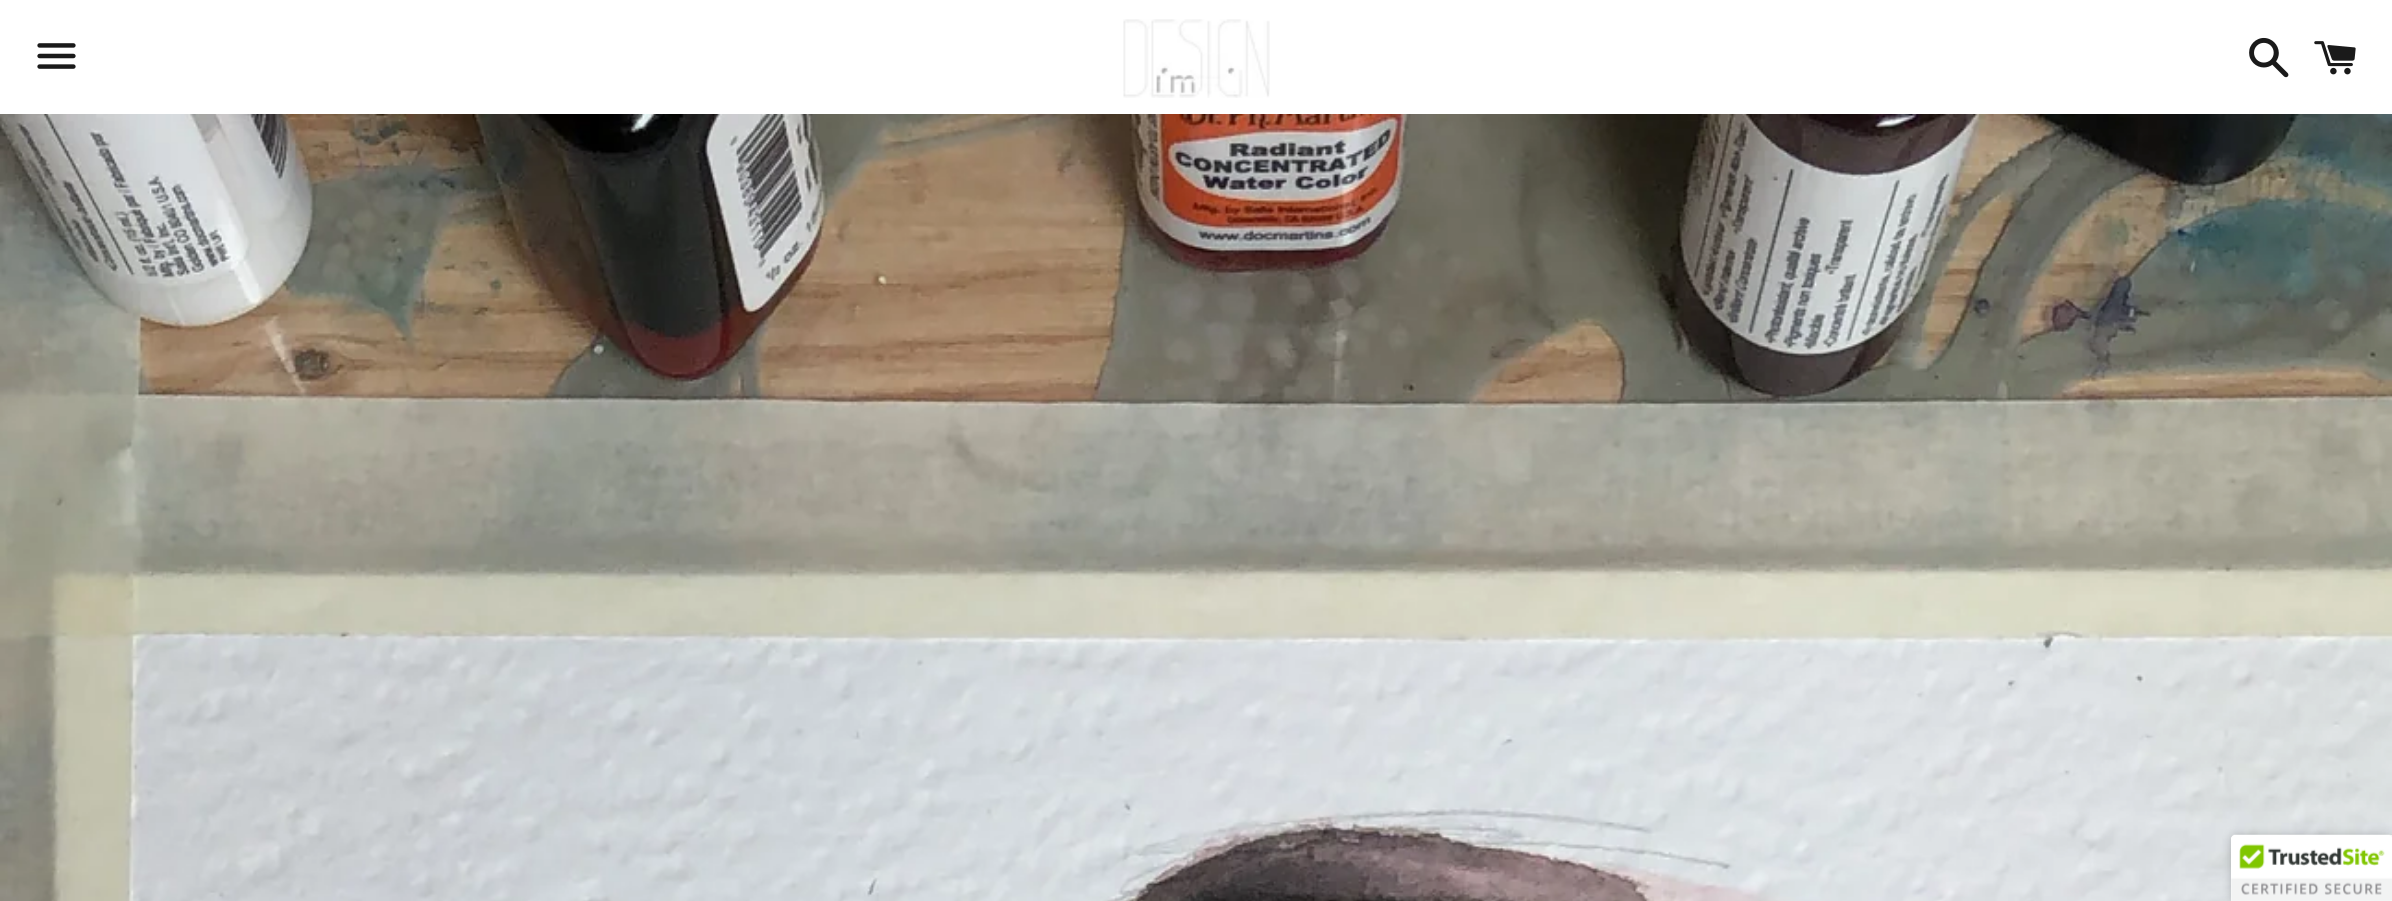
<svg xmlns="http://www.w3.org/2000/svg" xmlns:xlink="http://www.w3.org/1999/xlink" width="2392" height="901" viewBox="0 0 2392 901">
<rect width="100%" height="100%" fill="#ffffff"/>
<image xlink:href="image0.png" x="37" y="43" width="39" height="26"/>
<image xlink:href="image1.png" x="1123" y="19" width="147" height="79"/>
<image xlink:href="image2.png" x="2249" y="37" width="40" height="41"/>
<image xlink:href="image3.png" x="2314" y="41" width="42" height="34"/>
<image xlink:href="image4.png" x="0" y="114" width="2392" height="787"/>
<rect fill="#000000" fill-opacity="0.2" filter="blur(4.5px)" x="2231" y="835" width="161" height="66" rx="4"/>
<path fill="#ffffff" d="M2235 835H2392V901H2231V839C2231 837 2233 835 2235 835Z"/>
<image xlink:href="image5.png" x="2231" y="834" width="161" height="67"/>
</svg>
